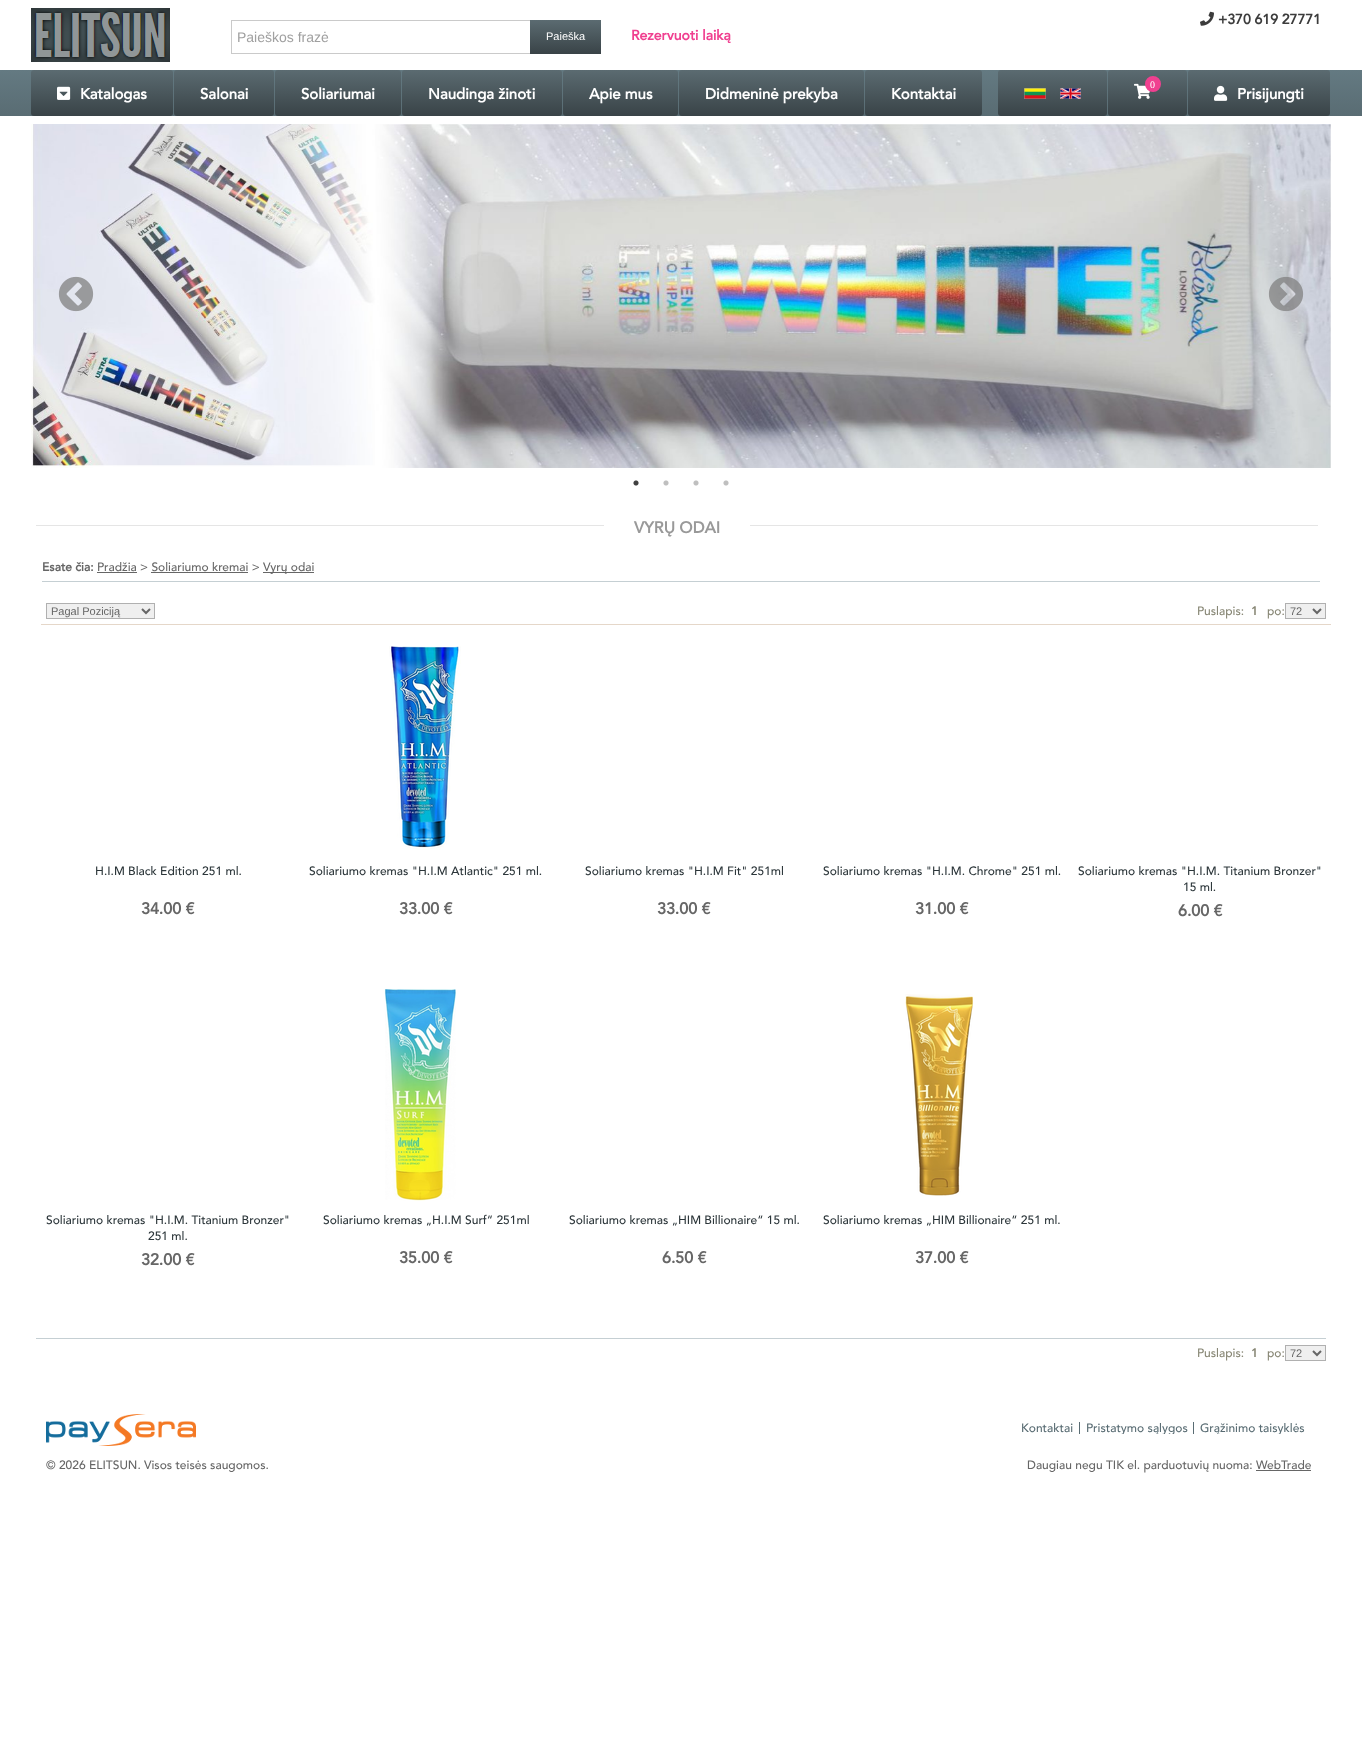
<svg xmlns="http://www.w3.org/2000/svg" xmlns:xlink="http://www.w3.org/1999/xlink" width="1362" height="1738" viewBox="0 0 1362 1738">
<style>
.cls-1{font:bold 14px Avenir;fill:#3c3c3c}
.cls-2{font:14px Liberation Sans;fill:#a0a0a0}
.cls-3{font:11px Liberation Sans;fill:#ffffff}
.cls-4{font:bold 14px Avenir;fill:#f04090}
.cls-5{font:10px Liberation Serif;fill:#ffffff}
.cls-6{font:bold 15px Avenir;fill:#ffffff}
.cls-7{font:bold 16px Avenir;fill:#999999}
.cls-8{font:bold 12px Avenir;fill:#666666}
.cls-9{font:500 12px Avenir;fill:#666666}
.cls-10{font:11px Liberation Sans;fill:#666666}
.cls-11{font:500 12px Avenir;fill:#878674}
.cls-12{font:bold 12px Avenir;fill:#878674}
.cls-13{font:500 12px Avenir;fill:#2c363a}
.cls-14{font:bold 16px Avenir;fill:#666666}
.cls-15{font:500 12px Avenir;fill:#596c73}
</style>
<defs>
<linearGradient id="g1" gradientUnits="userSpaceOnUse" x1="566" y1="20" x2="566" y2="54"><stop offset="0" stop-color="#5b6b71"/><stop offset="1" stop-color="#394347"/></linearGradient>
<linearGradient id="g2" gradientUnits="userSpaceOnUse" x1="681" y1="70" x2="681" y2="116"><stop offset="0" stop-color="#647a82"/><stop offset="1" stop-color="#596c73"/></linearGradient>
<linearGradient id="g3" gradientUnits="userSpaceOnUse" x1="1053" y1="70" x2="1053" y2="116"><stop offset="0" stop-color="#5b6b71"/><stop offset="1" stop-color="#394347"/></linearGradient>
<linearGradient id="g4" gradientUnits="userSpaceOnUse" x1="1148" y1="70" x2="1148" y2="116"><stop offset="0" stop-color="#5b6b71"/><stop offset="1" stop-color="#394347"/></linearGradient>
<linearGradient id="g5" gradientUnits="userSpaceOnUse" x1="102" y1="70" x2="102" y2="116"><stop offset="0" stop-color="#5b6b71"/><stop offset="1" stop-color="#394347"/></linearGradient>
<linearGradient id="g6" gradientUnits="userSpaceOnUse" x1="224" y1="70" x2="224" y2="116"><stop offset="0" stop-color="#5b6b71"/><stop offset="1" stop-color="#394347"/></linearGradient>
<linearGradient id="g7" gradientUnits="userSpaceOnUse" x1="338" y1="70" x2="338" y2="116"><stop offset="0" stop-color="#5b6b71"/><stop offset="1" stop-color="#394347"/></linearGradient>
<linearGradient id="g8" gradientUnits="userSpaceOnUse" x1="482" y1="70" x2="482" y2="116"><stop offset="0" stop-color="#5b6b71"/><stop offset="1" stop-color="#394347"/></linearGradient>
<linearGradient id="g9" gradientUnits="userSpaceOnUse" x1="621" y1="70" x2="621" y2="116"><stop offset="0" stop-color="#5b6b71"/><stop offset="1" stop-color="#394347"/></linearGradient>
<linearGradient id="g10" gradientUnits="userSpaceOnUse" x1="772" y1="70" x2="772" y2="116"><stop offset="0" stop-color="#5b6b71"/><stop offset="1" stop-color="#394347"/></linearGradient>
<linearGradient id="g11" gradientUnits="userSpaceOnUse" x1="924" y1="70" x2="924" y2="116"><stop offset="0" stop-color="#5b6b71"/><stop offset="1" stop-color="#394347"/></linearGradient>
<linearGradient id="g12" gradientUnits="userSpaceOnUse" x1="1259" y1="70" x2="1259" y2="116"><stop offset="0" stop-color="#5b6b71"/><stop offset="1" stop-color="#394347"/></linearGradient>
<clipPath id="clip1"><rect x="1015" y="1422" width="296" height="12"/></clipPath>
</defs>
<rect width="100%" height="100%" fill="#ffffff"/>
<image xlink:href="image0.png" x="31" y="8" width="139" height="54"/>
<image xlink:href="image1.png" x="1200" y="11" width="14" height="15"/>
<rect fill="none" stroke="#cacaca" x="231.5" y="20.5" width="299" height="33"/>
<rect fill="url(#g1)" x="530" y="20" width="71" height="34"/>
<rect fill="url(#g2)" x="0" y="70" width="1362" height="46"/>
<rect fill="url(#g3)" x="998" y="70" width="109" height="46" rx="3"/>
<image xlink:href="image2.png" x="1024" y="88" width="22" height="11"/>
<image xlink:href="image3.png" x="1060" y="88" width="21" height="11"/>
<rect fill="url(#g4)" x="1108" y="70" width="79" height="46" rx="3"/>
<image xlink:href="image4.png" x="1134" y="83" width="16" height="16"/>
<circle fill="#f04090" stroke="#f04090" stroke-width="2" cx="1153" cy="84" r="7"/>
<rect fill="url(#g5)" x="31" y="70" width="142" height="46" rx="3"/>
<image xlink:href="image5.png" x="57" y="86" width="14" height="14"/>
<rect fill="url(#g6)" x="174" y="70" width="100" height="46" rx="3"/>
<rect fill="url(#g7)" x="275" y="70" width="126" height="46" rx="3"/>
<rect fill="url(#g8)" x="402" y="70" width="160" height="46" rx="3"/>
<rect fill="url(#g9)" x="563" y="70" width="115" height="46" rx="3"/>
<rect fill="url(#g10)" x="679" y="70" width="185" height="46" rx="3"/>
<rect fill="url(#g11)" x="865" y="70" width="117" height="46" rx="3"/>
<rect fill="url(#g12)" x="1188" y="70" width="142" height="46" rx="3"/>
<image xlink:href="image6.png" x="1214" y="85" width="14" height="16"/>
<image xlink:href="image7.png" x="31" y="124" width="1300" height="344"/>
<image xlink:href="image8.png" x="58" y="276" width="36" height="36"/>
<image xlink:href="image9.png" x="1268" y="276" width="36" height="36"/>
<image xlink:href="image10.png" x="633" y="480" width="6" height="6"/>
<image xlink:href="image11.png" x="663" y="480" width="6" height="6"/>
<image xlink:href="image11.png" x="693" y="480" width="6" height="6"/>
<image xlink:href="image11.png" x="723" y="480" width="6" height="6"/>
<rect fill="#e5e5e5" x="36" y="525" width="1282" height="1"/>
<rect fill="#ffffff" x="604" y="525" width="146" height="1"/>
<rect fill="#c5cfd3" x="42" y="581" width="1278" height="1"/>
<rect fill="#666666" x="97" y="572" width="40" height="1"/>
<rect fill="#666666" x="263" y="572" width="51" height="1"/>
<rect fill="#666666" x="151" y="572" width="97" height="1"/>
<rect fill="#e5d7c9" x="41" y="624" width="1290" height="1"/>
<rect fill="#efefef" stroke="#b0b0b0" x="46.5" y="603.5" width="108" height="15"/>
<path fill="none" stroke="#666666" stroke-width="2" d="M142 609L146 613L150 609"/>
<rect fill="#efefef" stroke="#b0b0b0" x="1285.5" y="603.5" width="40" height="15"/>
<path fill="none" stroke="#666666" stroke-width="2" d="M1313 609L1317 613L1321 609"/>
<image xlink:href="image12.png" x="389" y="646" width="72" height="204"/>
<image xlink:href="image13.png" x="384" y="989" width="72" height="212"/>
<image xlink:href="image14.png" x="905" y="994" width="68" height="202"/>
<rect fill="#c5cfd3" x="36" y="1338" width="1290" height="1"/>
<rect fill="#efefef" stroke="#b0b0b0" x="1285.5" y="1345.5" width="40" height="15"/>
<path fill="none" stroke="#666666" stroke-width="2" d="M1313 1351L1317 1355L1321 1351"/>
<image xlink:href="image15.png" x="46" y="1414" width="150" height="32"/>
<rect fill="#596c73" x="1079" y="1422" width="1" height="12"/>
<rect fill="#596c73" x="1193" y="1422" width="1" height="12"/>
<rect fill="#666666" x="1256" y="1470" width="55" height="1"/>
<text class="cls-1" x="1218" y="24">+370 619 27771</text>
<text class="cls-2" x="237" y="42">Paieškos frazė</text>
<text class="cls-3" x="546" y="40">Paieška</text>
<text class="cls-4" x="631" y="40">Rezervuoti laiką</text>
<text class="cls-5" x="1150" y="88">0</text>
<text class="cls-6" x="80" y="99">Katalogas</text>
<text class="cls-6" x="200" y="99">Salonai</text>
<text class="cls-6" x="301" y="99">Soliariumai</text>
<text class="cls-6" x="428" y="99">Naudinga žinoti</text>
<text class="cls-6" x="589" y="99">Apie mus</text>
<text class="cls-6" x="705" y="99">Didmeninė prekyba</text>
<text class="cls-6" x="891" y="99">Kontaktai</text>
<text class="cls-6" x="1237" y="99">Prisijungti</text>
<text class="cls-7" x="634" y="533">VYRŲ ODAI</text>
<text class="cls-8" x="42" y="571">Esate čia:</text>
<text class="cls-9" x="97" y="571">Pradžia &gt; Soliariumo kremai &gt;</text>
<text class="cls-9" x="263" y="571">Vyrų odai</text>
<text class="cls-10" x="51" y="615">Pagal Poziciją</text>
<text class="cls-11" x="1197" y="615">Puslapis:</text>
<text class="cls-12" x="1251" y="615">1</text>
<text class="cls-11" x="1267" y="615">po:</text>
<text class="cls-10" x="1290" y="615">72</text>
<text class="cls-13" x="95" y="875">H.I.M Black Edition 251 ml.</text>
<text class="cls-14" x="141" y="914">34.00 €</text>
<text class="cls-13" x="309" y="875">Soliariumo kremas "H.I.M Atlantic" 251 ml.</text>
<text class="cls-14" x="399" y="914">33.00 €</text>
<text class="cls-13" x="585" y="875">Soliariumo kremas "H.I.M Fit" 251ml</text>
<text class="cls-14" x="657" y="914">33.00 €</text>
<text class="cls-13" x="823" y="875">Soliariumo kremas "H.I.M. Chrome" 251 ml.</text>
<text class="cls-14" x="915" y="914">31.00 €</text>
<text class="cls-13" x="1078" y="875">Soliariumo kremas "H.I.M. Titanium Bronzer"</text>
<text class="cls-13" x="1183" y="891">15 ml.</text>
<text class="cls-14" x="1178" y="916">6.00 €</text>
<text class="cls-13" x="46" y="1224">Soliariumo kremas "H.I.M. Titanium Bronzer"</text>
<text class="cls-13" x="148" y="1240">251 ml.</text>
<text class="cls-14" x="141" y="1265">32.00 €</text>
<text class="cls-13" x="323" y="1224">Soliariumo kremas „H.I.M Surf“ 251ml</text>
<text class="cls-14" x="399" y="1263">35.00 €</text>
<text class="cls-13" x="569" y="1224">Soliariumo kremas „HIM Billionaire“ 15 ml.</text>
<text class="cls-14" x="662" y="1263">6.50 €</text>
<text class="cls-13" x="823" y="1224">Soliariumo kremas „HIM Billionaire“ 251 ml.</text>
<text class="cls-14" x="915" y="1263">37.00 €</text>
<text class="cls-11" x="1197" y="1357">Puslapis:</text>
<text class="cls-12" x="1251" y="1357">1</text>
<text class="cls-11" x="1267" y="1357">po:</text>
<text class="cls-10" x="1290" y="1357">72</text>
<text class="cls-15" x="1021" y="1432">Kontaktai</text>
<g clip-path="url(#clip1)">
<text class="cls-15" x="1086" y="1432">Pristatymo sąlygos</text>
<text class="cls-15" x="1200" y="1432">Grąžinimo taisyklės</text>
</g>
<text class="cls-9" x="46" y="1469">© 2026 ELITSUN. Visos teisės saugomos.</text>
<text class="cls-9" x="1027" y="1469">Daugiau negu TIK el. parduotuvių nuoma: WebTrade</text>
</svg>
